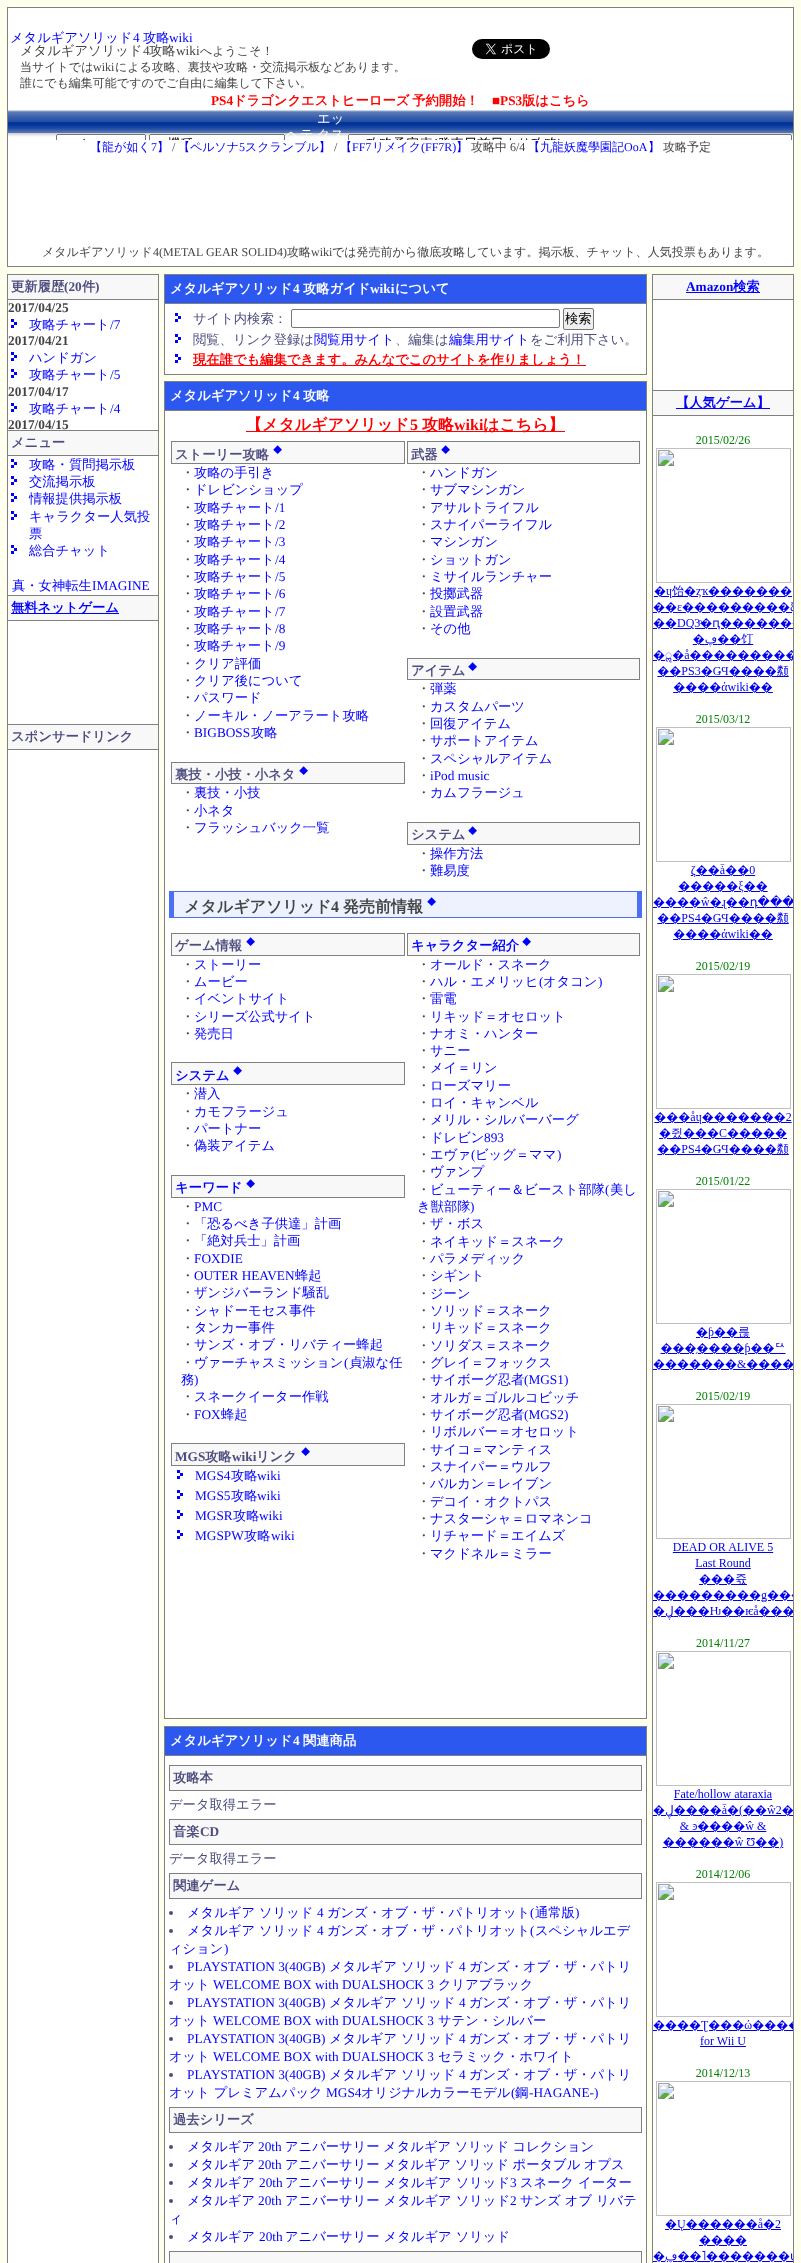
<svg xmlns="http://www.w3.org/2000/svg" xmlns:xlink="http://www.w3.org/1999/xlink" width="801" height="2263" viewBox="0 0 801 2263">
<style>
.cls-1{font:500 13.3px WenQuanYi Zen Hei;fill:#0000ff}
.cls-2{font:13.3px Liberation Serif;fill:#0000ff}
.cls-3{font:500 13.3px WenQuanYi Zen Hei;fill:#444444}
.cls-4{font:13.3px Liberation Serif;fill:#444444}
.cls-5{font:500 12px WenQuanYi Zen Hei;fill:#444444}
.cls-6{font:12px Liberation Serif;fill:#444444}
.cls-7{font:bold 13.3px Liberation Serif;fill:#ff0000}
.cls-8{font:bold 13.3px WenQuanYi Zen Hei;fill:#ff0000}
.cls-9{font:500 12px WenQuanYi Zen Hei;fill:#0000ff}
.cls-10{font:12px Liberation Serif;fill:#0000ff}
.cls-11{font:bold 13.3px WenQuanYi Zen Hei;fill:#4d4d80}
.cls-12{font:bold 13.3px Liberation Serif;fill:#4d4d80}
.cls-13{font:bold 13.3px Liberation Serif;fill:#444444}
.cls-14{font:bold 13.3px WenQuanYi Zen Hei;fill:#0000ff}
.cls-15{font:bold 13.3px WenQuanYi Zen Hei;fill:#ffffff}
.cls-16{font:bold 13.3px Liberation Serif;fill:#ffffff}
.cls-17{font:500 13.3px WenQuanYi Zen Hei;fill:#4d4d80}
.cls-18{font:500 13.3px WenQuanYi Zen Hei;fill:#000000}
.cls-19{font:bold 16px WenQuanYi Zen Hei;fill:#ff0000}
.cls-20{font:bold 16px Liberation Serif;fill:#ff0000}
.cls-21{font:bold 9px WenQuanYi Zen Hei;fill:#0000ff}
.cls-22{font:bold 16px WenQuanYi Zen Hei;fill:#444444}
.cls-23{font:bold 16px Liberation Serif;fill:#444444}
.cls-24{font:bold 13.3px Liberation Serif;fill:#0000ff}
</style>
<rect width="100%" height="100%" fill="#ffffee"/>
<rect fill="#ffffff" stroke="#808080" x="7.5" y="7.5" width="786" height="259"/>
<image xlink:href="image0.png" x="472" y="39" width="78" height="20"/>
<image xlink:href="image1.png" x="8" y="110" width="785" height="30"/>
<rect fill="#ffffff" x="8" y="300" width="150" height="1963"/>
<rect fill="#808080" x="158" y="274" width="1" height="1989"/>
<rect fill="#808080" x="7" y="274" width="1" height="1989"/>
<rect fill="#f8f8f8" x="8" y="275" width="150" height="24"/>
<rect fill="#808080" x="8" y="274" width="150" height="1"/>
<rect fill="#808080" x="8" y="299" width="150" height="1"/>
<image xlink:href="image2.png" x="11" y="319" width="6" height="9"/>
<image xlink:href="image2.png" x="11" y="352" width="6" height="9"/>
<image xlink:href="image2.png" x="11" y="369" width="6" height="9"/>
<image xlink:href="image2.png" x="11" y="403" width="6" height="9"/>
<rect fill="#f8f8f8" x="8" y="431" width="150" height="24"/>
<rect fill="#808080" x="8" y="430" width="150" height="1"/>
<rect fill="#808080" x="8" y="455" width="150" height="1"/>
<image xlink:href="image2.png" x="11" y="459" width="6" height="9"/>
<image xlink:href="image2.png" x="11" y="476" width="6" height="9"/>
<image xlink:href="image2.png" x="11" y="493" width="6" height="9"/>
<image xlink:href="image2.png" x="11" y="511" width="6" height="9"/>
<image xlink:href="image2.png" x="11" y="545" width="6" height="9"/>
<rect fill="#f8f8f8" x="8" y="596" width="150" height="24"/>
<rect fill="#808080" x="8" y="595" width="150" height="1"/>
<rect fill="#808080" x="8" y="620" width="150" height="1"/>
<rect fill="#0000ff" x="11" y="613" width="108" height="1"/>
<rect fill="#f8f8f8" x="8" y="725" width="150" height="24"/>
<rect fill="#808080" x="8" y="724" width="150" height="1"/>
<rect fill="#808080" x="8" y="749" width="150" height="1"/>
<rect fill="#2c58f0" stroke="#808080" x="164.5" y="274.5" width="482" height="29"/>
<rect fill="#ffffff" x="165" y="304" width="481" height="70"/>
<rect fill="#808080" x="646" y="304" width="1" height="71"/>
<rect fill="#808080" x="164" y="374" width="483" height="1"/>
<rect fill="#808080" x="164" y="304" width="1" height="71"/>
<image xlink:href="image2.png" x="175" y="313" width="6" height="9"/>
<rect fill="none" stroke="#767676" x="291.5" y="309.5" width="268" height="18" rx="1.5"/>
<rect fill="#efefef" stroke="#767676" x="563.5" y="308.5" width="30" height="21" rx="1.5"/>
<image xlink:href="image2.png" x="175" y="334" width="6" height="9"/>
<image xlink:href="image2.png" x="175" y="354" width="6" height="9"/>
<rect fill="#ff0000" x="193" y="365" width="393" height="1"/>
<rect fill="#2c58f0" stroke="#808080" x="164.5" y="381.5" width="482" height="29"/>
<rect fill="#ffffff" x="165" y="411" width="481" height="1307"/>
<rect fill="#808080" x="646" y="411" width="1" height="1308"/>
<rect fill="#808080" x="164" y="1718" width="483" height="1"/>
<rect fill="#808080" x="164" y="411" width="1" height="1308"/>
<rect fill="#ff0000" x="246" y="431" width="319" height="1"/>
<rect fill="#f8f8f8" stroke="#808080" x="171.5" y="441.5" width="233" height="22"/>
<rect fill="#f8f8f8" stroke="#808080" x="171.5" y="762.5" width="233" height="21"/>
<rect fill="#f8f8f8" stroke="#808080" x="407.5" y="441.5" width="232" height="22"/>
<rect fill="#f8f8f8" stroke="#808080" x="407.5" y="658.5" width="232" height="21"/>
<rect fill="#f8f8f8" stroke="#808080" x="407.5" y="822.5" width="232" height="22"/>
<rect fill="#eef2ff" x="174" y="892" width="463" height="25"/>
<rect fill="#4c70f3" x="169" y="891" width="473" height="1"/>
<rect fill="#4c70f3" x="637" y="891" width="5" height="27"/>
<rect fill="#4c70f3" x="169" y="917" width="473" height="1"/>
<rect fill="#4c70f3" x="169" y="891" width="5" height="27"/>
<rect fill="#f8f8f8" stroke="#808080" x="171.5" y="933.5" width="233" height="22"/>
<rect fill="#f8f8f8" stroke="#808080" x="171.5" y="1062.5" width="233" height="22"/>
<rect fill="#f8f8f8" stroke="#808080" x="171.5" y="1175.5" width="233" height="22"/>
<rect fill="#f8f8f8" stroke="#808080" x="171.5" y="1443.5" width="233" height="22"/>
<image xlink:href="image2.png" x="177" y="1470" width="6" height="9"/>
<image xlink:href="image2.png" x="177" y="1490" width="6" height="9"/>
<image xlink:href="image2.png" x="177" y="1510" width="6" height="9"/>
<image xlink:href="image2.png" x="177" y="1530" width="6" height="9"/>
<rect fill="#f8f8f8" stroke="#808080" x="407.5" y="933.5" width="232" height="22"/>
<rect fill="#2c58f0" stroke="#808080" x="164.5" y="1726.5" width="482" height="29"/>
<rect fill="#ffffff" x="165" y="1756" width="481" height="507"/>
<rect fill="#808080" x="646" y="1756" width="1" height="507"/>
<rect fill="#808080" x="164" y="1756" width="1" height="507"/>
<rect fill="#f8f8f8" stroke="#808080" x="169.5" y="1765.5" width="472" height="25"/>
<rect fill="#f8f8f8" stroke="#808080" x="169.5" y="1819.5" width="472" height="25"/>
<rect fill="#f8f8f8" stroke="#808080" x="169.5" y="1873.5" width="472" height="25"/>
<circle fill="#4d4d80" cx="171" cy="1913" r="2"/>
<circle fill="#4d4d80" cx="171" cy="1931" r="2"/>
<circle fill="#4d4d80" cx="171" cy="1967" r="2"/>
<circle fill="#4d4d80" cx="171" cy="2003" r="2"/>
<circle fill="#4d4d80" cx="171" cy="2039" r="2"/>
<circle fill="#4d4d80" cx="171" cy="2075" r="2"/>
<rect fill="#f8f8f8" stroke="#808080" x="169.5" y="2107.5" width="472" height="25"/>
<circle fill="#4d4d80" cx="171" cy="2147" r="2"/>
<circle fill="#4d4d80" cx="171" cy="2165" r="2"/>
<circle fill="#4d4d80" cx="171" cy="2183" r="2"/>
<circle fill="#4d4d80" cx="171" cy="2201" r="2"/>
<circle fill="#4d4d80" cx="171" cy="2237" r="2"/>
<rect fill="#f8f8f8" stroke="#808080" x="169.5" y="2251.5" width="472" height="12"/>
<rect fill="#ffffff" x="653" y="300" width="140" height="1963"/>
<rect fill="#808080" x="793" y="274" width="1" height="1989"/>
<rect fill="#808080" x="652" y="274" width="1" height="1989"/>
<rect fill="#f8f8f8" x="653" y="275" width="140" height="24"/>
<rect fill="#808080" x="653" y="274" width="140" height="1"/>
<rect fill="#808080" x="653" y="299" width="140" height="1"/>
<rect fill="#0000ff" x="686" y="292" width="74" height="1"/>
<rect fill="#f8f8f8" x="653" y="391" width="140" height="24"/>
<rect fill="#808080" x="653" y="390" width="140" height="1"/>
<rect fill="#808080" x="653" y="415" width="140" height="1"/>
<rect fill="#0000ff" x="676" y="408" width="94" height="1"/>
<image xlink:href="image3.png" x="653" y="436" width="140" height="1827"/>
<text class="cls-1" x="10" y="42">メタルギアソリッド</text>
<text class="cls-2" x="133" y="42">4</text>
<text class="cls-1" x="143" y="42">攻略</text>
<text class="cls-2" x="169" y="42">wiki</text>
<text class="cls-3" x="20" y="55">メタルギアソリッド</text>
<text class="cls-4" x="143" y="55">4</text>
<text class="cls-3" x="149" y="55">攻略</text>
<text class="cls-4" x="176" y="55">wiki</text>
<text class="cls-5" x="200" y="55">へようこそ！</text>
<text class="cls-5" x="20" y="71">当サイトでは</text>
<text class="cls-6" x="93" y="71">wiki</text>
<text class="cls-5" x="115" y="71">による攻略、裏技や攻略・交流掲示板などあります。</text>
<text class="cls-5" x="20" y="87">誰にでも編集可能ですのでご自由に編集して下さい。</text>
<text class="cls-7" x="211" y="105">PS4</text>
<text class="cls-8" x="233" y="105" word-spacing="-1">ドラゴンクエストヒーローズ 予約開始！</text>
<text class="cls-7" x="492" y="105">■PS3</text>
<text class="cls-8" x="522" y="105">版はこちら</text>
<text class="cls-9" x="90" y="151">【龍が如く</text>
<text class="cls-10" x="151" y="151">7</text>
<text class="cls-9" x="157" y="151">】</text>
<text class="cls-6" x="172" y="151">/</text>
<text class="cls-9" x="178" y="151">【ペルソナ</text>
<text class="cls-10" x="239" y="151">5</text>
<text class="cls-9" x="245" y="151">スクランブル】</text>
<text class="cls-6" x="334" y="151">/</text>
<text class="cls-9" x="340" y="151">【</text>
<text class="cls-10" x="352" y="151">FF7</text>
<text class="cls-9" x="372" y="151">リメイク</text>
<text class="cls-10" x="421" y="151">(FF7R)</text>
<text class="cls-9" x="456" y="151">】</text>
<text class="cls-5" x="471" y="151">攻略中</text>
<text class="cls-6" x="510" y="151">6/4</text>
<text class="cls-9" x="528" y="151">【九龍妖魔學園記</text>
<text class="cls-10" x="624" y="151">OoA</text>
<text class="cls-9" x="648" y="151">】</text>
<text class="cls-5" x="663" y="151">攻略予定</text>
<text class="cls-5" x="42" y="256">メタルギアソリッド</text>
<text class="cls-6" x="153" y="256">4(METAL GEAR SOLID4)</text>
<text class="cls-5" x="287" y="256">攻略</text>
<text class="cls-6" x="311" y="256">wiki</text>
<text class="cls-5" x="332" y="256">では発売前から徹底攻略しています。掲示板、チャット、人気投票もあります。</text>
<text class="cls-11" x="11" y="291">更新履歴</text>
<text class="cls-12" x="64" y="291">(20</text>
<text class="cls-11" x="82" y="291">件</text>
<text class="cls-12" x="95" y="291">)</text>
<text class="cls-13" x="8" y="312">2017/04/25</text>
<text class="cls-1" x="29" y="329">攻略チャート</text>
<text class="cls-2" x="110" y="329">/7</text>
<text class="cls-13" x="8" y="345">2017/04/21</text>
<text class="cls-1"><tspan x="29" y="362">ハンドガン</tspan><tspan x="29" y="379">攻略チャート</tspan></text>
<text class="cls-2" x="110" y="379">/5</text>
<text class="cls-13" x="8" y="396">2017/04/17</text>
<text class="cls-1" x="29" y="413">攻略チャート</text>
<text class="cls-2" x="110" y="413">/4</text>
<text class="cls-13" x="8" y="429">2017/04/15</text>
<text class="cls-11" x="11" y="447">メニュー</text>
<text class="cls-1"><tspan x="29" y="469">攻略・質問掲示板</tspan><tspan x="29" y="486">交流掲示板</tspan><tspan x="29" y="503">情報提供掲示板</tspan><tspan x="29" y="521">キャラクター人気投</tspan><tspan x="29" y="538">票</tspan><tspan x="29" y="555">総合チャット</tspan></text>
<text class="cls-1" x="12" y="590">真・女神転生</text>
<text class="cls-2" x="92" y="590">IMAGINE</text>
<text class="cls-14" x="11" y="612">無料ネットゲーム</text>
<text class="cls-11" x="11" y="741">スポンサードリンク</text>
<text class="cls-15" x="170" y="293">メタルギアソリッド</text>
<text class="cls-16" x="293" y="293">4</text>
<text class="cls-15" x="303" y="293">攻略ガイド</text>
<text class="cls-16" x="370" y="293">wiki</text>
<text class="cls-15" x="395" y="293">について</text>
<text class="cls-17" x="193" y="323">サイト内検索：</text>
<text class="cls-18" x="565" y="323">検索</text>
<text class="cls-17" x="193" y="344">閲覧、リンク登録は</text>
<text class="cls-1" x="314" y="344">閲覧用サイト</text>
<text class="cls-17" x="395" y="344">、編集は</text>
<text class="cls-1" x="449" y="344">編集用サイト</text>
<text class="cls-17" x="530" y="344">をご利用下さい。</text>
<text class="cls-8" x="193" y="364">現在誰でも編集できます。みんなでこのサイトを作りましょう！</text>
<text class="cls-15" x="170" y="400">メタルギアソリッド</text>
<text class="cls-16" x="293" y="400">4</text>
<text class="cls-15" x="303" y="400">攻略</text>
<text class="cls-19" x="246" y="430">【メタルギアソリッド</text>
<text class="cls-20" x="410" y="430">5</text>
<text class="cls-19" x="422" y="430">攻略</text>
<text class="cls-20" x="454" y="430">wiki</text>
<text class="cls-19" x="483" y="430">はこちら】</text>
<text class="cls-11" x="175" y="459">ストーリー攻略</text>
<text class="cls-21" x="273" y="453">◆</text>
<text class="cls-3" x="181" y="477">・</text>
<text class="cls-1" x="194" y="477">攻略の手引き</text>
<text class="cls-3" x="181" y="494">・</text>
<text class="cls-1" x="194" y="494">ドレビンショップ</text>
<text class="cls-3" x="181" y="512">・</text>
<text class="cls-1" x="194" y="512">攻略チャート</text>
<text class="cls-2" x="275" y="512">/1</text>
<text class="cls-3" x="181" y="529">・</text>
<text class="cls-1" x="194" y="529">攻略チャート</text>
<text class="cls-2" x="275" y="529">/2</text>
<text class="cls-3" x="181" y="546">・</text>
<text class="cls-1" x="194" y="546">攻略チャート</text>
<text class="cls-2" x="275" y="546">/3</text>
<text class="cls-3" x="181" y="564">・</text>
<text class="cls-1" x="194" y="564">攻略チャート</text>
<text class="cls-2" x="275" y="564">/4</text>
<text class="cls-3" x="181" y="581">・</text>
<text class="cls-1" x="194" y="581">攻略チャート</text>
<text class="cls-2" x="275" y="581">/5</text>
<text class="cls-3" x="181" y="598">・</text>
<text class="cls-1" x="194" y="598">攻略チャート</text>
<text class="cls-2" x="275" y="598">/6</text>
<text class="cls-3" x="181" y="616">・</text>
<text class="cls-1" x="194" y="616">攻略チャート</text>
<text class="cls-2" x="275" y="616">/7</text>
<text class="cls-3" x="181" y="633">・</text>
<text class="cls-1" x="194" y="633">攻略チャート</text>
<text class="cls-2" x="275" y="633">/8</text>
<text class="cls-3" x="181" y="650">・</text>
<text class="cls-1" x="194" y="650">攻略チャート</text>
<text class="cls-2" x="275" y="650">/9</text>
<text class="cls-3" x="181" y="668">・</text>
<text class="cls-1" x="194" y="668">クリア評価</text>
<text class="cls-3" x="181" y="685">・</text>
<text class="cls-1" x="194" y="685">クリア後について</text>
<text class="cls-3" x="181" y="702">・</text>
<text class="cls-1" x="194" y="702">パスワード</text>
<text class="cls-3" x="181" y="720">・</text>
<text class="cls-1" x="194" y="720">ノーキル・ノーアラート攻略</text>
<text class="cls-3" x="181" y="737">・</text>
<text class="cls-2" x="194" y="737">BIGBOSS</text>
<text class="cls-1" x="251" y="737">攻略</text>
<text class="cls-11" x="175" y="779">裏技・小技・小ネタ</text>
<text class="cls-21" x="299" y="774">◆</text>
<text class="cls-3" x="181" y="797">・</text>
<text class="cls-1" x="194" y="797">裏技・小技</text>
<text class="cls-3" x="181" y="815">・</text>
<text class="cls-1" x="194" y="815">小ネタ</text>
<text class="cls-3" x="181" y="832">・</text>
<text class="cls-1" x="194" y="832">フラッシュバック一覧</text>
<text class="cls-11" x="411" y="459">武器</text>
<text class="cls-21" x="441" y="453">◆</text>
<text class="cls-3" x="417" y="477">・</text>
<text class="cls-1" x="430" y="477">ハンドガン</text>
<text class="cls-3" x="417" y="494">・</text>
<text class="cls-1" x="430" y="494">サブマシンガン</text>
<text class="cls-3" x="417" y="512">・</text>
<text class="cls-1" x="430" y="512">アサルトライフル</text>
<text class="cls-3" x="417" y="529">・</text>
<text class="cls-1" x="430" y="529">スナイパーライフル</text>
<text class="cls-3" x="417" y="546">・</text>
<text class="cls-1" x="430" y="546">マシンガン</text>
<text class="cls-3" x="417" y="564">・</text>
<text class="cls-1" x="430" y="564">ショットガン</text>
<text class="cls-3" x="417" y="581">・</text>
<text class="cls-1" x="430" y="581">ミサイルランチャー</text>
<text class="cls-3" x="417" y="598">・</text>
<text class="cls-1" x="430" y="598">投擲武器</text>
<text class="cls-3" x="417" y="616">・</text>
<text class="cls-1" x="430" y="616">設置武器</text>
<text class="cls-3" x="417" y="633">・</text>
<text class="cls-1" x="430" y="633">その他</text>
<text class="cls-11" x="411" y="675">アイテム</text>
<text class="cls-21" x="468" y="670">◆</text>
<text class="cls-3" x="417" y="693">・</text>
<text class="cls-1" x="430" y="693">弾薬</text>
<text class="cls-3" x="417" y="711">・</text>
<text class="cls-1" x="430" y="711">カスタムパーツ</text>
<text class="cls-3" x="417" y="728">・</text>
<text class="cls-1" x="430" y="728">回復アイテム</text>
<text class="cls-3" x="417" y="745">・</text>
<text class="cls-1" x="430" y="745">サポートアイテム</text>
<text class="cls-3" x="417" y="763">・</text>
<text class="cls-1" x="430" y="763">スペシャルアイテム</text>
<text class="cls-3" x="417" y="780">・</text>
<text class="cls-2" x="430" y="780">iPod music</text>
<text class="cls-3" x="417" y="797">・</text>
<text class="cls-1" x="430" y="797">カムフラージュ</text>
<text class="cls-11" x="411" y="839">システム</text>
<text class="cls-21" x="468" y="834">◆</text>
<text class="cls-3" x="417" y="858">・</text>
<text class="cls-1" x="430" y="858">操作方法</text>
<text class="cls-3" x="417" y="875">・</text>
<text class="cls-1" x="430" y="875">難易度</text>
<text class="cls-22" x="184" y="912">メタルギアソリッド</text>
<text class="cls-23" x="331" y="912">4</text>
<text class="cls-22" x="343" y="912">発売前情報</text>
<text class="cls-21" x="427" y="905">◆</text>
<text class="cls-11" x="175" y="950">ゲーム情報</text>
<text class="cls-21" x="246" y="945">◆</text>
<text class="cls-3" x="181" y="969">・</text>
<text class="cls-1" x="194" y="969">ストーリー</text>
<text class="cls-3" x="181" y="986">・</text>
<text class="cls-1" x="194" y="986">ムービー</text>
<text class="cls-3" x="181" y="1003">・</text>
<text class="cls-1" x="194" y="1003">イベントサイト</text>
<text class="cls-3" x="181" y="1021">・</text>
<text class="cls-1" x="194" y="1021">シリーズ公式サイト</text>
<text class="cls-3" x="181" y="1038">・</text>
<text class="cls-1" x="194" y="1038">発売日</text>
<text class="cls-14" x="175" y="1080">システム</text>
<text class="cls-21" x="233" y="1074">◆</text>
<text class="cls-3" x="181" y="1098">・</text>
<text class="cls-1" x="194" y="1098">潜入</text>
<text class="cls-3" x="181" y="1116">・</text>
<text class="cls-1" x="194" y="1116">カモフラージュ</text>
<text class="cls-3" x="181" y="1133">・</text>
<text class="cls-1" x="194" y="1133">パートナー</text>
<text class="cls-3" x="181" y="1150">・</text>
<text class="cls-1" x="194" y="1150">偽装アイテム</text>
<text class="cls-14" x="175" y="1192">キーワード</text>
<text class="cls-21" x="246" y="1187">◆</text>
<text class="cls-3" x="181" y="1211">・</text>
<text class="cls-2" x="194" y="1211">PMC</text>
<text class="cls-3" x="181" y="1228">・</text>
<text class="cls-1" x="194" y="1228">「恐るべき子供達」計画</text>
<text class="cls-3" x="181" y="1245">・</text>
<text class="cls-1" x="194" y="1245">「絶対兵士」計画</text>
<text class="cls-3" x="181" y="1263">・</text>
<text class="cls-2" x="194" y="1263">FOXDIE</text>
<text class="cls-3" x="181" y="1280">・</text>
<text class="cls-2" x="194" y="1280">OUTER HEAVEN</text>
<text class="cls-1" x="295" y="1280">蜂起</text>
<text class="cls-3" x="181" y="1297">・</text>
<text class="cls-1" x="194" y="1297">ザンジバーランド騒乱</text>
<text class="cls-3" x="181" y="1315">・</text>
<text class="cls-1" x="194" y="1315">シャドーモセス事件</text>
<text class="cls-3" x="181" y="1332">・</text>
<text class="cls-1" x="194" y="1332">タンカー事件</text>
<text class="cls-3" x="181" y="1349">・</text>
<text class="cls-1" x="194" y="1349">サンズ・オブ・リバティー蜂起</text>
<text class="cls-3" x="181" y="1367">・</text>
<text class="cls-1" x="194" y="1367">ヴァーチャスミッション</text>
<text class="cls-2" x="344" y="1367">(</text>
<text class="cls-1" x="349" y="1367">貞淑な任</text>
<text class="cls-1" x="181" y="1384">務</text>
<text class="cls-2" x="194" y="1384">)</text>
<text class="cls-3" x="181" y="1401">・</text>
<text class="cls-1" x="194" y="1401">スネークイーター作戦</text>
<text class="cls-3" x="181" y="1419">・</text>
<text class="cls-2" x="194" y="1419">FOX</text>
<text class="cls-1" x="221" y="1419">蜂起</text>
<text class="cls-12" x="175" y="1461">MGS</text>
<text class="cls-11" x="205" y="1461">攻略</text>
<text class="cls-12" x="232" y="1461">wiki</text>
<text class="cls-11" x="256" y="1461">リンク</text>
<text class="cls-21" x="301" y="1455">◆</text>
<text class="cls-2" x="195" y="1480">MGS4</text>
<text class="cls-1" x="231" y="1480">攻略</text>
<text class="cls-2" x="257" y="1480">wiki</text>
<text class="cls-2" x="195" y="1500">MGS5</text>
<text class="cls-1" x="231" y="1500">攻略</text>
<text class="cls-2" x="257" y="1500">wiki</text>
<text class="cls-2" x="195" y="1520">MGSR</text>
<text class="cls-1" x="233" y="1520">攻略</text>
<text class="cls-2" x="259" y="1520">wiki</text>
<text class="cls-2" x="195" y="1540">MGSPW</text>
<text class="cls-1" x="244" y="1540">攻略</text>
<text class="cls-2" x="271" y="1540">wiki</text>
<text class="cls-14" x="411" y="950">キャラクター紹介</text>
<text class="cls-21" x="522" y="945">◆</text>
<text class="cls-3" x="417" y="969">・</text>
<text class="cls-1" x="430" y="969">オールド・スネーク</text>
<text class="cls-3" x="417" y="986">・</text>
<text class="cls-1" x="430" y="986">ハル・エメリッヒ</text>
<text class="cls-2" x="539" y="986">(</text>
<text class="cls-1" x="543" y="986">オタコン</text>
<text class="cls-2" x="598" y="986">)</text>
<text class="cls-3" x="417" y="1003">・</text>
<text class="cls-1" x="430" y="1003">雷電</text>
<text class="cls-3" x="417" y="1021">・</text>
<text class="cls-1" x="430" y="1021">リキッド＝オセロット</text>
<text class="cls-3" x="417" y="1038">・</text>
<text class="cls-1" x="430" y="1038">ナオミ・ハンター</text>
<text class="cls-3" x="417" y="1055">・</text>
<text class="cls-1" x="430" y="1055">サニー</text>
<text class="cls-3" x="417" y="1072">・</text>
<text class="cls-1" x="430" y="1072">メイ＝リン</text>
<text class="cls-3" x="417" y="1090">・</text>
<text class="cls-1" x="430" y="1090">ローズマリー</text>
<text class="cls-3" x="417" y="1107">・</text>
<text class="cls-1" x="430" y="1107">ロイ・キャンベル</text>
<text class="cls-3" x="417" y="1124">・</text>
<text class="cls-1" x="430" y="1124">メリル・シルバーバーグ</text>
<text class="cls-3" x="417" y="1142">・</text>
<text class="cls-1" x="430" y="1142">ドレビン</text>
<text class="cls-2" x="484" y="1142">893</text>
<text class="cls-3" x="417" y="1159">・</text>
<text class="cls-1" x="430" y="1159">エヴァ</text>
<text class="cls-2" x="471" y="1159">(</text>
<text class="cls-1" x="475" y="1159">ビッグ＝ママ</text>
<text class="cls-2" x="557" y="1159">)</text>
<text class="cls-3" x="417" y="1176">・</text>
<text class="cls-1" x="430" y="1176">ヴァンプ</text>
<text class="cls-3" x="417" y="1194">・</text>
<text class="cls-1" x="430" y="1194">ビューティー＆ビースト部隊</text>
<text class="cls-2" x="605" y="1194">(</text>
<text class="cls-1" x="610" y="1194">美し</text>
<text class="cls-1" x="417" y="1211">き獣部隊</text>
<text class="cls-2" x="470" y="1211">)</text>
<text class="cls-3" x="417" y="1228">・</text>
<text class="cls-1" x="430" y="1228">ザ・ボス</text>
<text class="cls-3" x="417" y="1246">・</text>
<text class="cls-1" x="430" y="1246">ネイキッド＝スネーク</text>
<text class="cls-3" x="417" y="1263">・</text>
<text class="cls-1" x="430" y="1263">パラメディック</text>
<text class="cls-3" x="417" y="1280">・</text>
<text class="cls-1" x="430" y="1280">シギント</text>
<text class="cls-3" x="417" y="1298">・</text>
<text class="cls-1" x="430" y="1298">ジーン</text>
<text class="cls-3" x="417" y="1315">・</text>
<text class="cls-1" x="430" y="1315">ソリッド＝スネーク</text>
<text class="cls-3" x="417" y="1332">・</text>
<text class="cls-1" x="430" y="1332">リキッド＝スネーク</text>
<text class="cls-3" x="417" y="1350">・</text>
<text class="cls-1" x="430" y="1350">ソリダス＝スネーク</text>
<text class="cls-3" x="417" y="1367">・</text>
<text class="cls-1" x="430" y="1367">グレイ＝フォックス</text>
<text class="cls-3" x="417" y="1384">・</text>
<text class="cls-1" x="430" y="1384">サイボーグ忍者</text>
<text class="cls-2" x="524" y="1384">(MGS1)</text>
<text class="cls-3" x="417" y="1402">・</text>
<text class="cls-1" x="430" y="1402">オルガ＝ゴルルコビッチ</text>
<text class="cls-3" x="417" y="1419">・</text>
<text class="cls-1" x="430" y="1419">サイボーグ忍者</text>
<text class="cls-2" x="524" y="1419">(MGS2)</text>
<text class="cls-3" x="417" y="1436">・</text>
<text class="cls-1" x="430" y="1436">リボルバー＝オセロット</text>
<text class="cls-3" x="417" y="1454">・</text>
<text class="cls-1" x="430" y="1454">サイコ＝マンティス</text>
<text class="cls-3" x="417" y="1471">・</text>
<text class="cls-1" x="430" y="1471">スナイパー＝ウルフ</text>
<text class="cls-3" x="417" y="1488">・</text>
<text class="cls-1" x="430" y="1488">バルカン＝レイブン</text>
<text class="cls-3" x="417" y="1506">・</text>
<text class="cls-1" x="430" y="1506">デコイ・オクトパス</text>
<text class="cls-3" x="417" y="1523">・</text>
<text class="cls-1" x="430" y="1523">ナスターシャ＝ロマネンコ</text>
<text class="cls-3" x="417" y="1540">・</text>
<text class="cls-1" x="430" y="1540">リチャード＝エイムズ</text>
<text class="cls-3" x="417" y="1558">・</text>
<text class="cls-1" x="430" y="1558">マクドネル＝ミラー</text>
<text class="cls-15" x="170" y="1745">メタルギアソリッド</text>
<text class="cls-16" x="293" y="1745">4</text>
<text class="cls-15" x="303" y="1745">関連商品</text>
<text class="cls-11" x="173" y="1782">攻略本</text>
<text class="cls-17" x="169" y="1809">データ取得エラー</text>
<text class="cls-11" x="173" y="1836">音楽</text>
<text class="cls-12" x="200" y="1836">CD</text>
<text class="cls-17" x="169" y="1863">データ取得エラー</text>
<text class="cls-11" x="173" y="1890">関連ゲーム</text>
<text class="cls-1" x="187" y="1917">メタルギア ソリッド</text>
<text class="cls-2" x="317" y="1917">4</text>
<text class="cls-1" x="327" y="1917">ガンズ・オブ・ザ・パトリオット</text>
<text class="cls-2" x="530" y="1917">(</text>
<text class="cls-1" x="535" y="1917">通常版</text>
<text class="cls-2" x="575" y="1917">)</text>
<text class="cls-1" x="187" y="1935">メタルギア ソリッド</text>
<text class="cls-2" x="317" y="1935">4</text>
<text class="cls-1" x="327" y="1935">ガンズ・オブ・ザ・パトリオット</text>
<text class="cls-2" x="530" y="1935">(</text>
<text class="cls-1" x="535" y="1935">スペシャルエデ</text>
<text class="cls-1" x="169" y="1953">ィション</text>
<text class="cls-2" x="224" y="1953">)</text>
<text class="cls-2" x="187" y="1971">PLAYSTATION 3(40GB)</text>
<text class="cls-1" x="329" y="1971">メタルギア</text>
<text class="cls-1" x="401" y="1971">ソリッド</text>
<text class="cls-2" x="459" y="1971">4</text>
<text class="cls-1" x="469" y="1971">ガンズ・オブ・ザ・パトリ</text>
<text class="cls-1" x="169" y="1989">オット</text>
<text class="cls-2" x="213" y="1989">WELCOME BOX with DUALSHOCK 3</text>
<text class="cls-1" x="438" y="1989">クリアブラック</text>
<text class="cls-2" x="187" y="2007">PLAYSTATION 3(40GB)</text>
<text class="cls-1" x="329" y="2007">メタルギア</text>
<text class="cls-1" x="401" y="2007">ソリッド</text>
<text class="cls-2" x="459" y="2007">4</text>
<text class="cls-1" x="469" y="2007">ガンズ・オブ・ザ・パトリ</text>
<text class="cls-1" x="169" y="2025">オット</text>
<text class="cls-2" x="213" y="2025">WELCOME BOX with DUALSHOCK 3</text>
<text class="cls-1" x="438" y="2025">サテン・シルバー</text>
<text class="cls-2" x="187" y="2043">PLAYSTATION 3(40GB)</text>
<text class="cls-1" x="329" y="2043">メタルギア</text>
<text class="cls-1" x="401" y="2043">ソリッド</text>
<text class="cls-2" x="459" y="2043">4</text>
<text class="cls-1" x="469" y="2043">ガンズ・オブ・ザ・パトリ</text>
<text class="cls-1" x="169" y="2061">オット</text>
<text class="cls-2" x="213" y="2061">WELCOME BOX with DUALSHOCK 3</text>
<text class="cls-1" x="438" y="2061">セラミック・ホワイト</text>
<text class="cls-2" x="187" y="2079">PLAYSTATION 3(40GB)</text>
<text class="cls-1" x="329" y="2079">メタルギア</text>
<text class="cls-1" x="401" y="2079">ソリッド</text>
<text class="cls-2" x="459" y="2079">4</text>
<text class="cls-1" x="469" y="2079">ガンズ・オブ・ザ・パトリ</text>
<text class="cls-1" x="169" y="2097">オット プレミアムパック</text>
<text class="cls-2" x="326" y="2097">MGS4</text>
<text class="cls-1" x="361" y="2097">オリジナルカラーモデル</text>
<text class="cls-2" x="511" y="2097">(</text>
<text class="cls-1" x="515" y="2097">鋼</text>
<text class="cls-2" x="529" y="2097">-HAGANE-)</text>
<text class="cls-11" x="173" y="2124">過去シリーズ</text>
<text class="cls-1" x="187" y="2151">メタルギア</text>
<text class="cls-2" x="258" y="2151">20th</text>
<text class="cls-1" x="285" y="2151" word-spacing="-0.5">アニバーサリー メタルギア ソリッド コレクション</text>
<text class="cls-1" x="187" y="2169">メタルギア</text>
<text class="cls-2" x="258" y="2169">20th</text>
<text class="cls-1" x="285" y="2169" word-spacing="-0.5">アニバーサリー メタルギア ソリッド ポータブル オプス</text>
<text class="cls-1" x="187" y="2187">メタルギア</text>
<text class="cls-2" x="259" y="2187">20th</text>
<text class="cls-1" x="285" y="2187">アニバーサリー メタルギア ソリッド</text>
<text class="cls-2" x="510" y="2187">3</text>
<text class="cls-1" x="520" y="2187">スネーク イーター</text>
<text class="cls-1" x="187" y="2205">メタルギア</text>
<text class="cls-2" x="258" y="2205">20th</text>
<text class="cls-1" x="285" y="2205">アニバーサリー メタルギア ソリッド</text>
<text class="cls-2" x="510" y="2205">2</text>
<text class="cls-1" x="520" y="2205">サンズ オブ リバテ</text>
<text class="cls-1" x="169" y="2223">ィ</text>
<text class="cls-1" x="187" y="2241">メタルギア</text>
<text class="cls-2" x="259" y="2241">20th</text>
<text class="cls-1" x="285" y="2241">アニバーサリー メタルギア ソリッド</text>
<text class="cls-24" x="686" y="291">Amazon</text>
<text class="cls-14" x="733" y="291">検索</text>
<text class="cls-14" x="676" y="407">【人気ゲーム】</text>
</svg>
